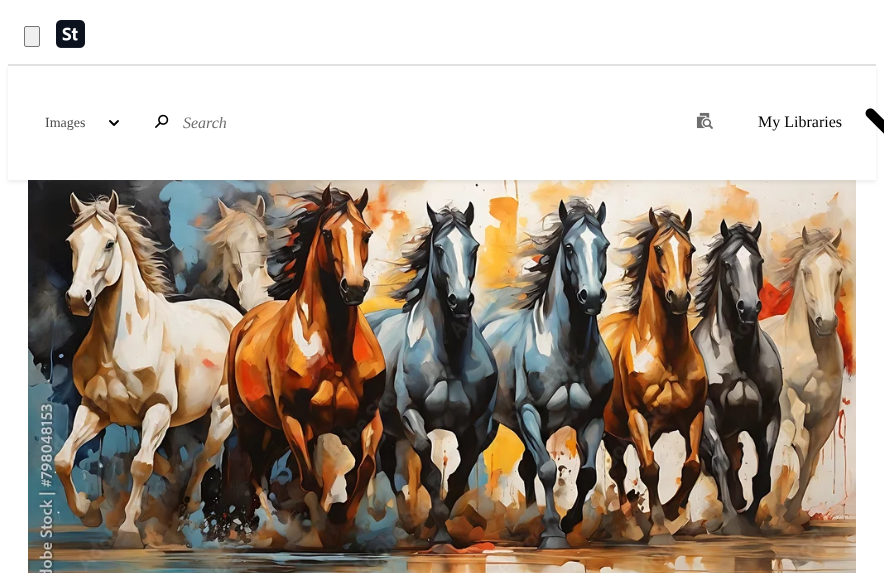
<svg xmlns="http://www.w3.org/2000/svg" xmlns:xlink="http://www.w3.org/1999/xlink" width="884" height="573" viewBox="0 0 884 573">
<style>
.cls-1{font:14px Liberation Serif;fill:#4b4b4b}
.cls-2{font:italic 16px Liberation Serif;fill:#6e6e6e}
.cls-3{font:16px Liberation Serif;fill:#000000}
</style>
<rect width="100%" height="100%" fill="#ffffff"/>
<image xlink:href="image5.png" x="28" y="180" width="828" height="393"/>
<rect fill="#343434" fill-opacity="0.1" filter="blur(2px)" x="8" y="68" width="868" height="114"/>
<rect fill="#e1e1e1" x="8" y="64" width="868" height="2"/>
<rect fill="#efefef" stroke="#767676" x="24.5" y="26.5" width="15" height="20" rx="1.5"/>
<image xlink:href="image0.png" x="56" y="20" width="29" height="28"/>
<rect fill="#ffffff" x="8" y="66" width="868" height="114"/>
<image xlink:href="image1.png" x="109" y="120" width="10" height="6"/>
<image xlink:href="image2.png" x="155" y="114" width="14" height="14"/>
<image xlink:href="image3.png" x="696" y="112" width="17" height="17"/>
<image xlink:href="image4.png" x="865" y="108" width="19" height="26"/>
<text class="cls-1" x="45" y="127">Images</text>
<text class="cls-2" x="183" y="128">Search</text>
<text class="cls-3" x="758" y="127">My Libraries</text>
</svg>
